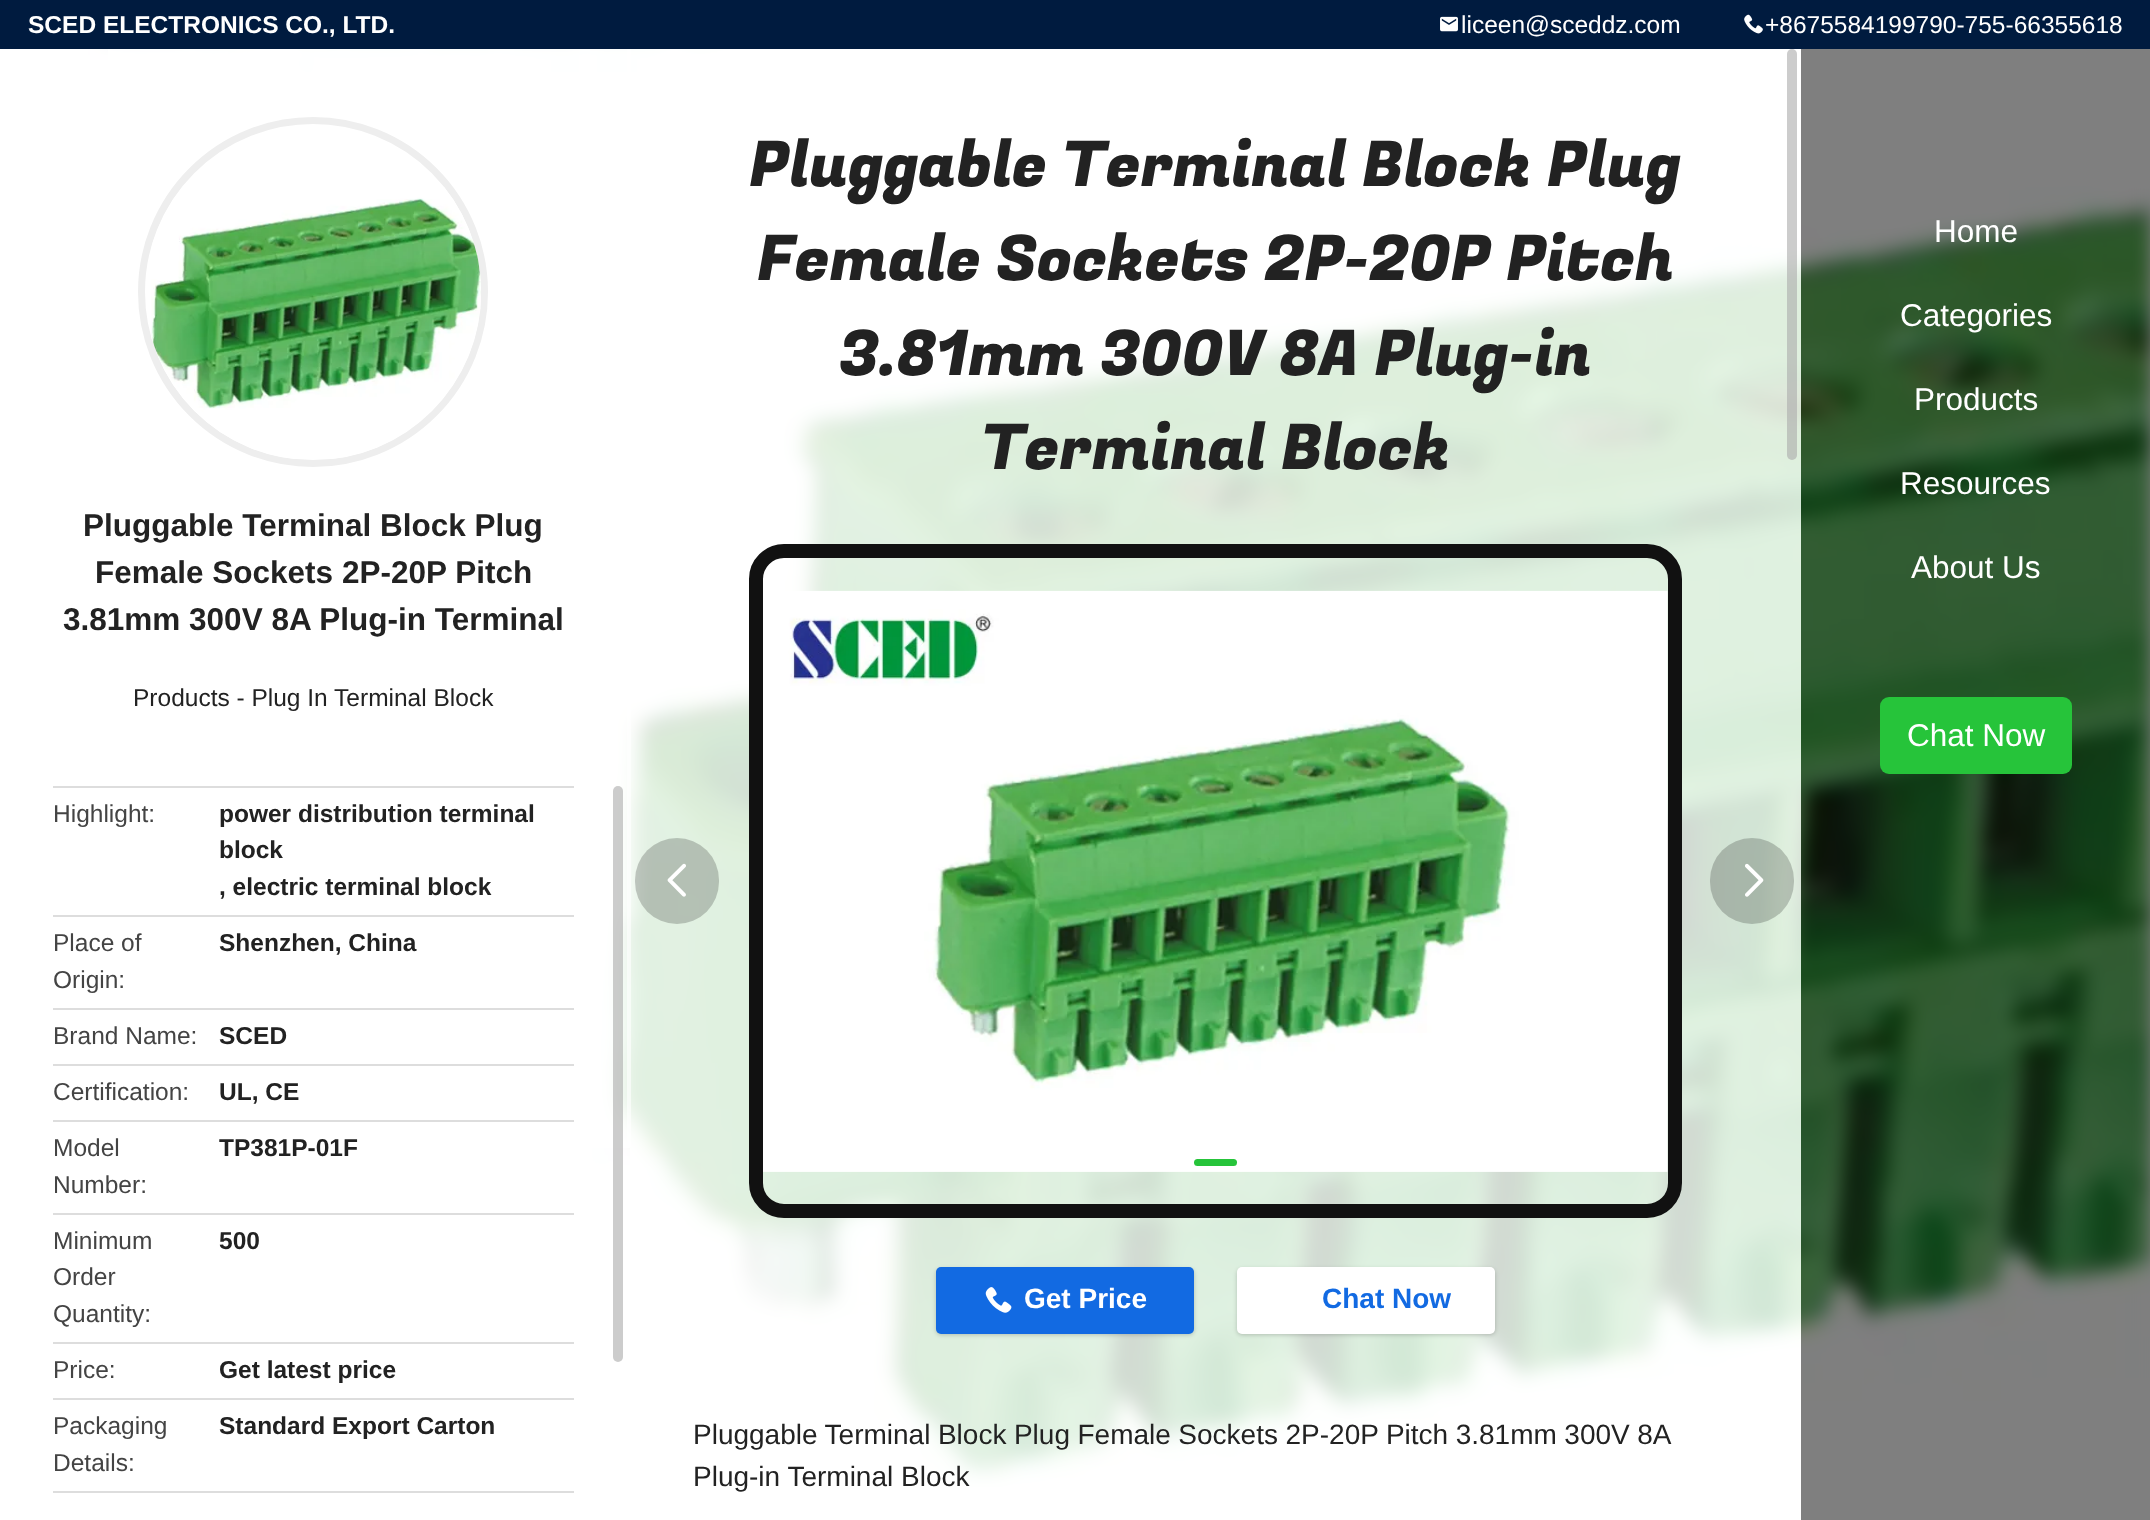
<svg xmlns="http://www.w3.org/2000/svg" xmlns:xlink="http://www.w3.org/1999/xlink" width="2150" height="1520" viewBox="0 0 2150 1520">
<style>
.cls-1{font:bold 24.5px Liberation Sans;fill:#ffffff}
.cls-2{font:24.5px Liberation Sans;fill:#ffffff}
.cls-3{font:bold 31.5px Liberation Sans;fill:#222222}
.cls-4{font:24.5px Liberation Sans;fill:#222222}
.cls-5{font:24.5px Liberation Sans;fill:#444444}
.cls-6{font:bold 24.5px Liberation Sans;fill:#222222}
.cls-7{font:63px Fugaz One;fill:#222222}
.cls-8{font:bold 28px Liberation Sans;fill:#ffffff}
.cls-9{font:bold 28px Liberation Sans;fill:#126ae2}
.cls-10{font:28px Liberation Sans;fill:#222222}
.cls-11{font:31.5px Liberation Sans;fill:#ffffff}
</style>
<rect width="100%" height="100%" fill="#ffffff"/>
<rect fill="#001b3f" x="0" y="0" width="2150" height="49"/>
<image xlink:href="image0.png" x="1440" y="16" width="18" height="16"/>
<image xlink:href="image1.png" x="1744" y="14" width="19" height="20"/>
<image xlink:href="image2.png" x="88" y="49" width="2062" height="1438"/>
<rect fill="#ffffff" fill-opacity="0.8" x="108" y="49" width="522" height="1099"/>
<rect fill="#ffffff" fill-opacity="0.6" x="627" y="49" width="4" height="1098"/>
<circle fill="none" stroke="#eeeeee" stroke-width="7" cx="313" cy="292" r="171.5"/>
<image xlink:href="image3.png" x="151" y="187" width="330" height="272"/>
<rect fill="#dddddd" x="53" y="786" width="521" height="2"/>
<rect fill="#dddddd" x="53" y="915" width="521" height="2"/>
<rect fill="#dddddd" x="53" y="1008" width="521" height="2"/>
<rect fill="#dddddd" x="53" y="1064" width="521" height="2"/>
<rect fill="#dddddd" x="53" y="1120" width="521" height="2"/>
<rect fill="#dddddd" x="53" y="1213" width="521" height="2"/>
<rect fill="#dddddd" x="53" y="1342" width="521" height="2"/>
<rect fill="#dddddd" x="53" y="1398" width="521" height="2"/>
<rect fill="#dddddd" x="53" y="1491" width="521" height="2"/>
<rect fill="#aaaaaa" fill-opacity="0.6" x="613" y="786" width="10" height="576" rx="5"/>
<rect fill="#ffffff" fill-opacity="0.8" x="630" y="49" width="1171" height="1438"/>
<rect fill="#aaaaaa" fill-opacity="0.6" x="1787" y="49" width="10" height="411" rx="5"/>
<rect fill="none" stroke="#111111" stroke-width="14" x="756" y="551" width="919" height="660" rx="28"/>
<image xlink:href="image4.png" x="763" y="590" width="905" height="582"/>
<rect fill="#000000" fill-opacity="0.2" x="635" y="838" width="84" height="86" rx="42"/>
<image xlink:href="image5.png" x="667" y="863" width="19" height="34"/>
<rect fill="#000000" fill-opacity="0.2" x="1710" y="838" width="84" height="86" rx="42"/>
<image xlink:href="image6.png" x="1745" y="863" width="19" height="34"/>
<rect fill="#26c43a" x="1194" y="1159" width="43" height="7" rx="3.5"/>
<rect fill="#000000" fill-opacity="0.2" filter="blur(2px)" x="936" y="1269" width="258" height="66" rx="5"/>
<rect fill="#126ae2" x="936" y="1267" width="258" height="67" rx="5"/>
<image xlink:href="image7.png" x="985" y="1287" width="27" height="26"/>
<rect fill="#000000" fill-opacity="0.2" filter="blur(2px)" x="1237" y="1269" width="258" height="66" rx="5"/>
<rect fill="#ffffff" x="1237" y="1267" width="258" height="67" rx="5"/>
<rect fill="#000000" fill-opacity="0.5" x="1801" y="49" width="349" height="1471"/>
<rect fill="#26c43a" x="1880" y="697" width="192" height="77" rx="9"/>
<text class="cls-1" x="28" y="33">SCED ELECTRONICS CO., LTD.</text>
<text class="cls-2" x="1461" y="33">liceen@sceddz.com</text>
<text class="cls-2" x="1765" y="33">+8675584199790-755-66355618</text>
<text class="cls-3" x="83" y="536">Pluggable Terminal Block Plug</text>
<text class="cls-3" x="95" y="583">Female Sockets 2P-20P Pitch</text>
<text class="cls-3" x="63" y="630">3.81mm 300V 8A Plug-in Terminal</text>
<text class="cls-4" x="133" y="706">Products - Plug In Terminal Block</text>
<text class="cls-5" x="53" y="822">Highlight:</text>
<text class="cls-6"><tspan x="219" y="822">power distribution terminal</tspan><tspan x="219" y="858">block</tspan><tspan x="219" y="895">, electric terminal block</tspan></text>
<text class="cls-5"><tspan x="53" y="951">Place of</tspan><tspan x="53" y="988">Origin:</tspan></text>
<text class="cls-6" x="219" y="951">Shenzhen, China</text>
<text class="cls-5" x="53" y="1044">Brand Name:</text>
<text class="cls-6" x="219" y="1044">SCED</text>
<text class="cls-5" x="53" y="1100">Certification:</text>
<text class="cls-6" x="219" y="1100">UL, CE</text>
<text class="cls-5"><tspan x="53" y="1156">Model</tspan><tspan x="53" y="1193">Number:</tspan></text>
<text class="cls-6" x="219" y="1156">TP381P-01F</text>
<text class="cls-5"><tspan x="53" y="1249">Minimum</tspan><tspan x="53" y="1285">Order</tspan><tspan x="53" y="1322">Quantity:</tspan></text>
<text class="cls-6" x="219" y="1249">500</text>
<text class="cls-5" x="53" y="1378">Price:</text>
<text class="cls-6" x="219" y="1378">Get latest price</text>
<text class="cls-5"><tspan x="53" y="1434">Packaging</tspan><tspan x="53" y="1471">Details:</tspan></text>
<text class="cls-6" x="219" y="1434">Standard Export Carton</text>
<text class="cls-7" x="749" y="186">Pluggable Terminal Block Plug</text>
<text class="cls-7" x="757" y="280">Female Sockets 2P-20P Pitch</text>
<text class="cls-7" x="839" y="375">3.81mm 300V 8A Plug-in</text>
<text class="cls-7" x="981" y="469">Terminal Block</text>
<text class="cls-8" x="1024" y="1308">Get Price</text>
<text class="cls-9" x="1322" y="1308">Chat Now</text>
<text class="cls-10"><tspan x="693" y="1444" word-spacing="-0.25">Pluggable Terminal Block Plug Female Sockets 2P-20P Pitch 3.81mm 300V 8A</tspan><tspan x="693" y="1486">Plug-in Terminal Block</tspan></text>
<text class="cls-11" x="1934" y="242">Home</text>
<text class="cls-11" x="1900" y="326">Categories</text>
<text class="cls-11" x="1914" y="410">Products</text>
<text class="cls-11" x="1900" y="494">Resources</text>
<text class="cls-11" x="1911" y="578">About Us</text>
<text class="cls-11" x="1907" y="746">Chat Now</text>
</svg>
